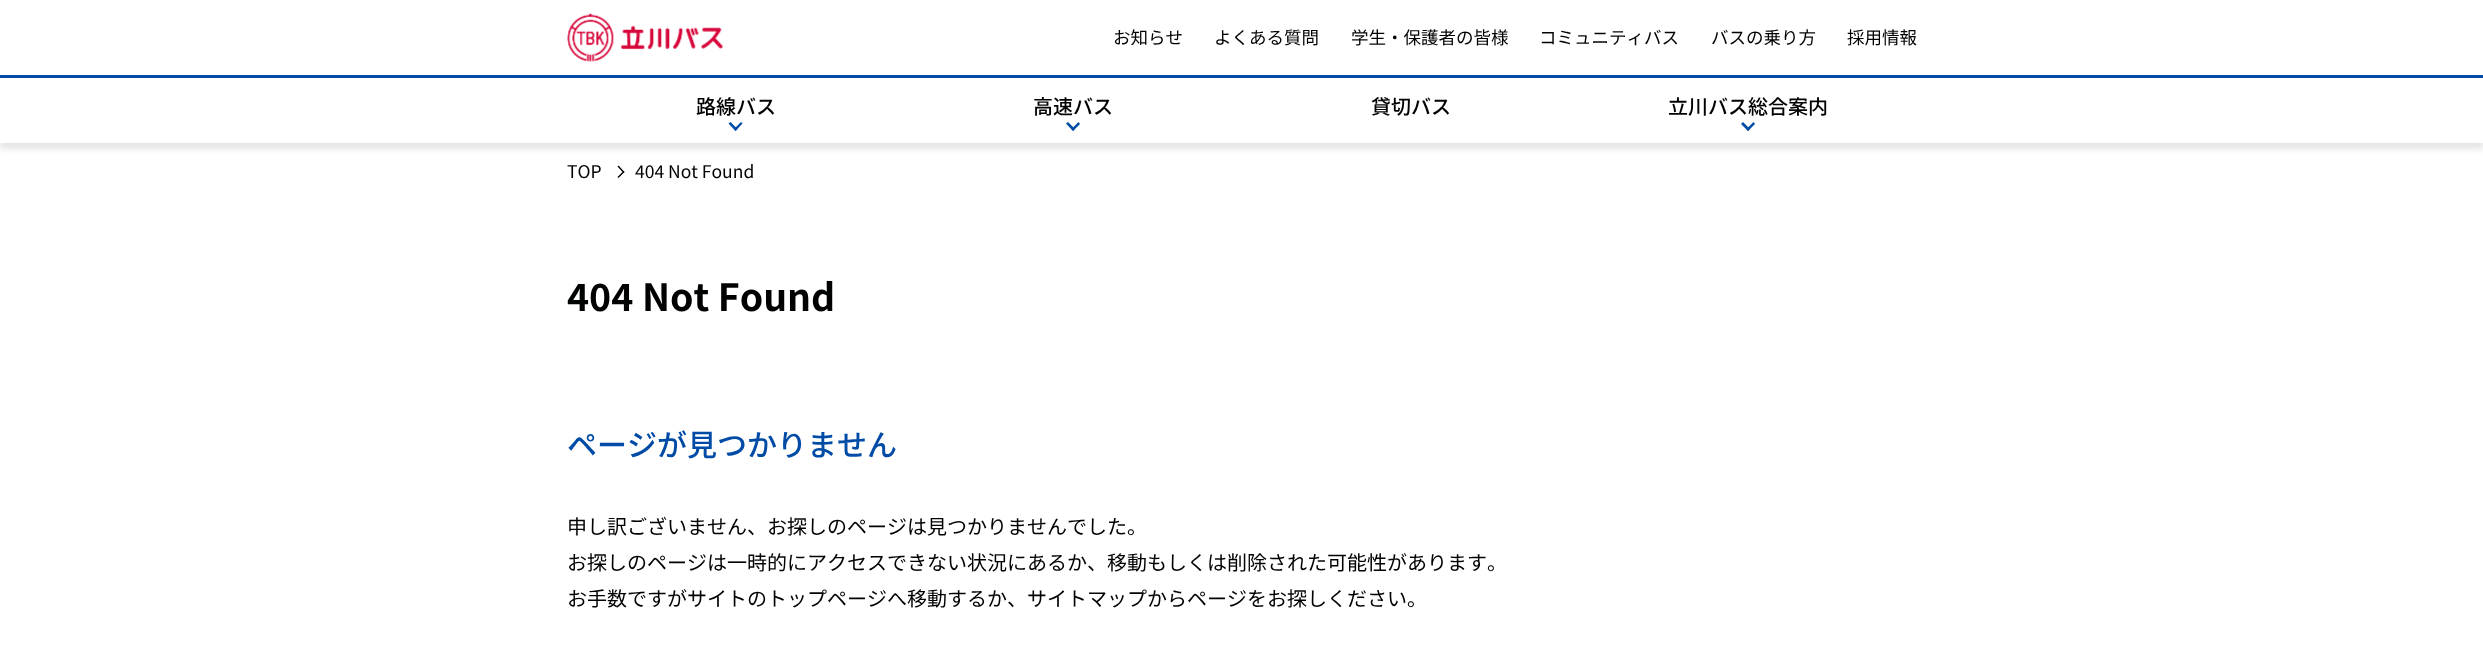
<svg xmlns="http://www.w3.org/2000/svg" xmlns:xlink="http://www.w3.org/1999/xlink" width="2483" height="660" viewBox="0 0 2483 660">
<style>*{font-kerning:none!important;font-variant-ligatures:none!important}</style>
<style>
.cls-1{font:17.5px Noto Sans JP;fill:#000101}
.cls-2{font:500 20px Noto Sans JP;fill:#000101}
.cls-3{font:bold 37.5px Noto Sans JP;fill:#000101}
.cls-4{font:500 30px Noto Sans JP;fill:#004ba5}
.cls-5{font:20px Noto Sans JP;fill:#000101}
</style>
<defs>
<clipPath id="clip1"><path d="M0 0H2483V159H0ZM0 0H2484V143H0Z" clip-rule="evenodd"/></clipPath>
</defs>
<rect width="100%" height="100%" fill="#ffffff"/>
<g clip-path="url(#clip1)">
<rect fill="#000000" fill-opacity="0.1" filter="blur(3px)" x="0" y="6" width="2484" height="143"/>
</g>
<rect fill="#ffffff" fill-opacity="0.9" x="0" y="142" width="2483" height="1"/>
<rect fill="#004ba5" x="0" y="75" width="2483" height="3"/>
<image xlink:href="image0.png" x="567" y="13" width="157" height="49"/>
<path fill="#004ba5" d="M741 122L742.5 123.5L735.5 131L734 129Z"/>
<path fill="#004ba5" d="M730.5 122L737.5 129L735.5 131L728.5 123.5Z"/>
<path fill="#004ba5" d="M1078.5 122L1080 124L1073 131L1071.5 129Z"/>
<path fill="#004ba5" d="M1068 122L1075 129L1073 131L1066 123.5Z"/>
<path fill="#004ba5" d="M1753.5 122L1755 124L1748 131L1746.5 129Z"/>
<path fill="#004ba5" d="M1743 122L1750 129L1748 131L1741 124Z"/>
<path fill="#000000" d="M618.5 165.5L624.5 172L623.5 173L617.5 166.5Z"/>
<path fill="#000000" d="M623.5 171L624.5 172L618.5 178L617.5 177Z"/>
<text class="cls-1" x="1113" y="44">お知らせ</text>
<text class="cls-1" x="1214" y="44">よくある質問</text>
<text class="cls-1" x="1351" y="44">学生・保護者の皆様</text>
<text class="cls-1" x="1539" y="44">コミュニティバス</text>
<text class="cls-1" x="1711" y="44">バスの乗り方</text>
<text class="cls-1" x="1847" y="44">採用情報</text>
<text class="cls-2" x="696" y="114">路線バス</text>
<text class="cls-2" x="1033" y="114">高速バス</text>
<text class="cls-2" x="1371" y="114">貸切バス</text>
<text class="cls-2" x="1668" y="114">立川バス総合案内</text>
<text class="cls-1" x="567" y="178">TOP</text>
<text class="cls-1" x="635" y="178">404 Not Found</text>
<text class="cls-3" x="567" y="311">404 Not Found</text>
<text class="cls-4" x="567" y="456">ページが見つかりません</text>
<text class="cls-5"><tspan x="567" y="534">申し訳ございません、お探しのページは見つかりませんでした。</tspan><tspan x="567" y="570">お探しのページは一時的にアクセスできない状況にあるか、移動もしくは削除された可能性があります。</tspan><tspan x="567" y="606">お手数ですがサイトのトップページへ移動するか、サイトマップからページをお探しください。</tspan></text>
</svg>
